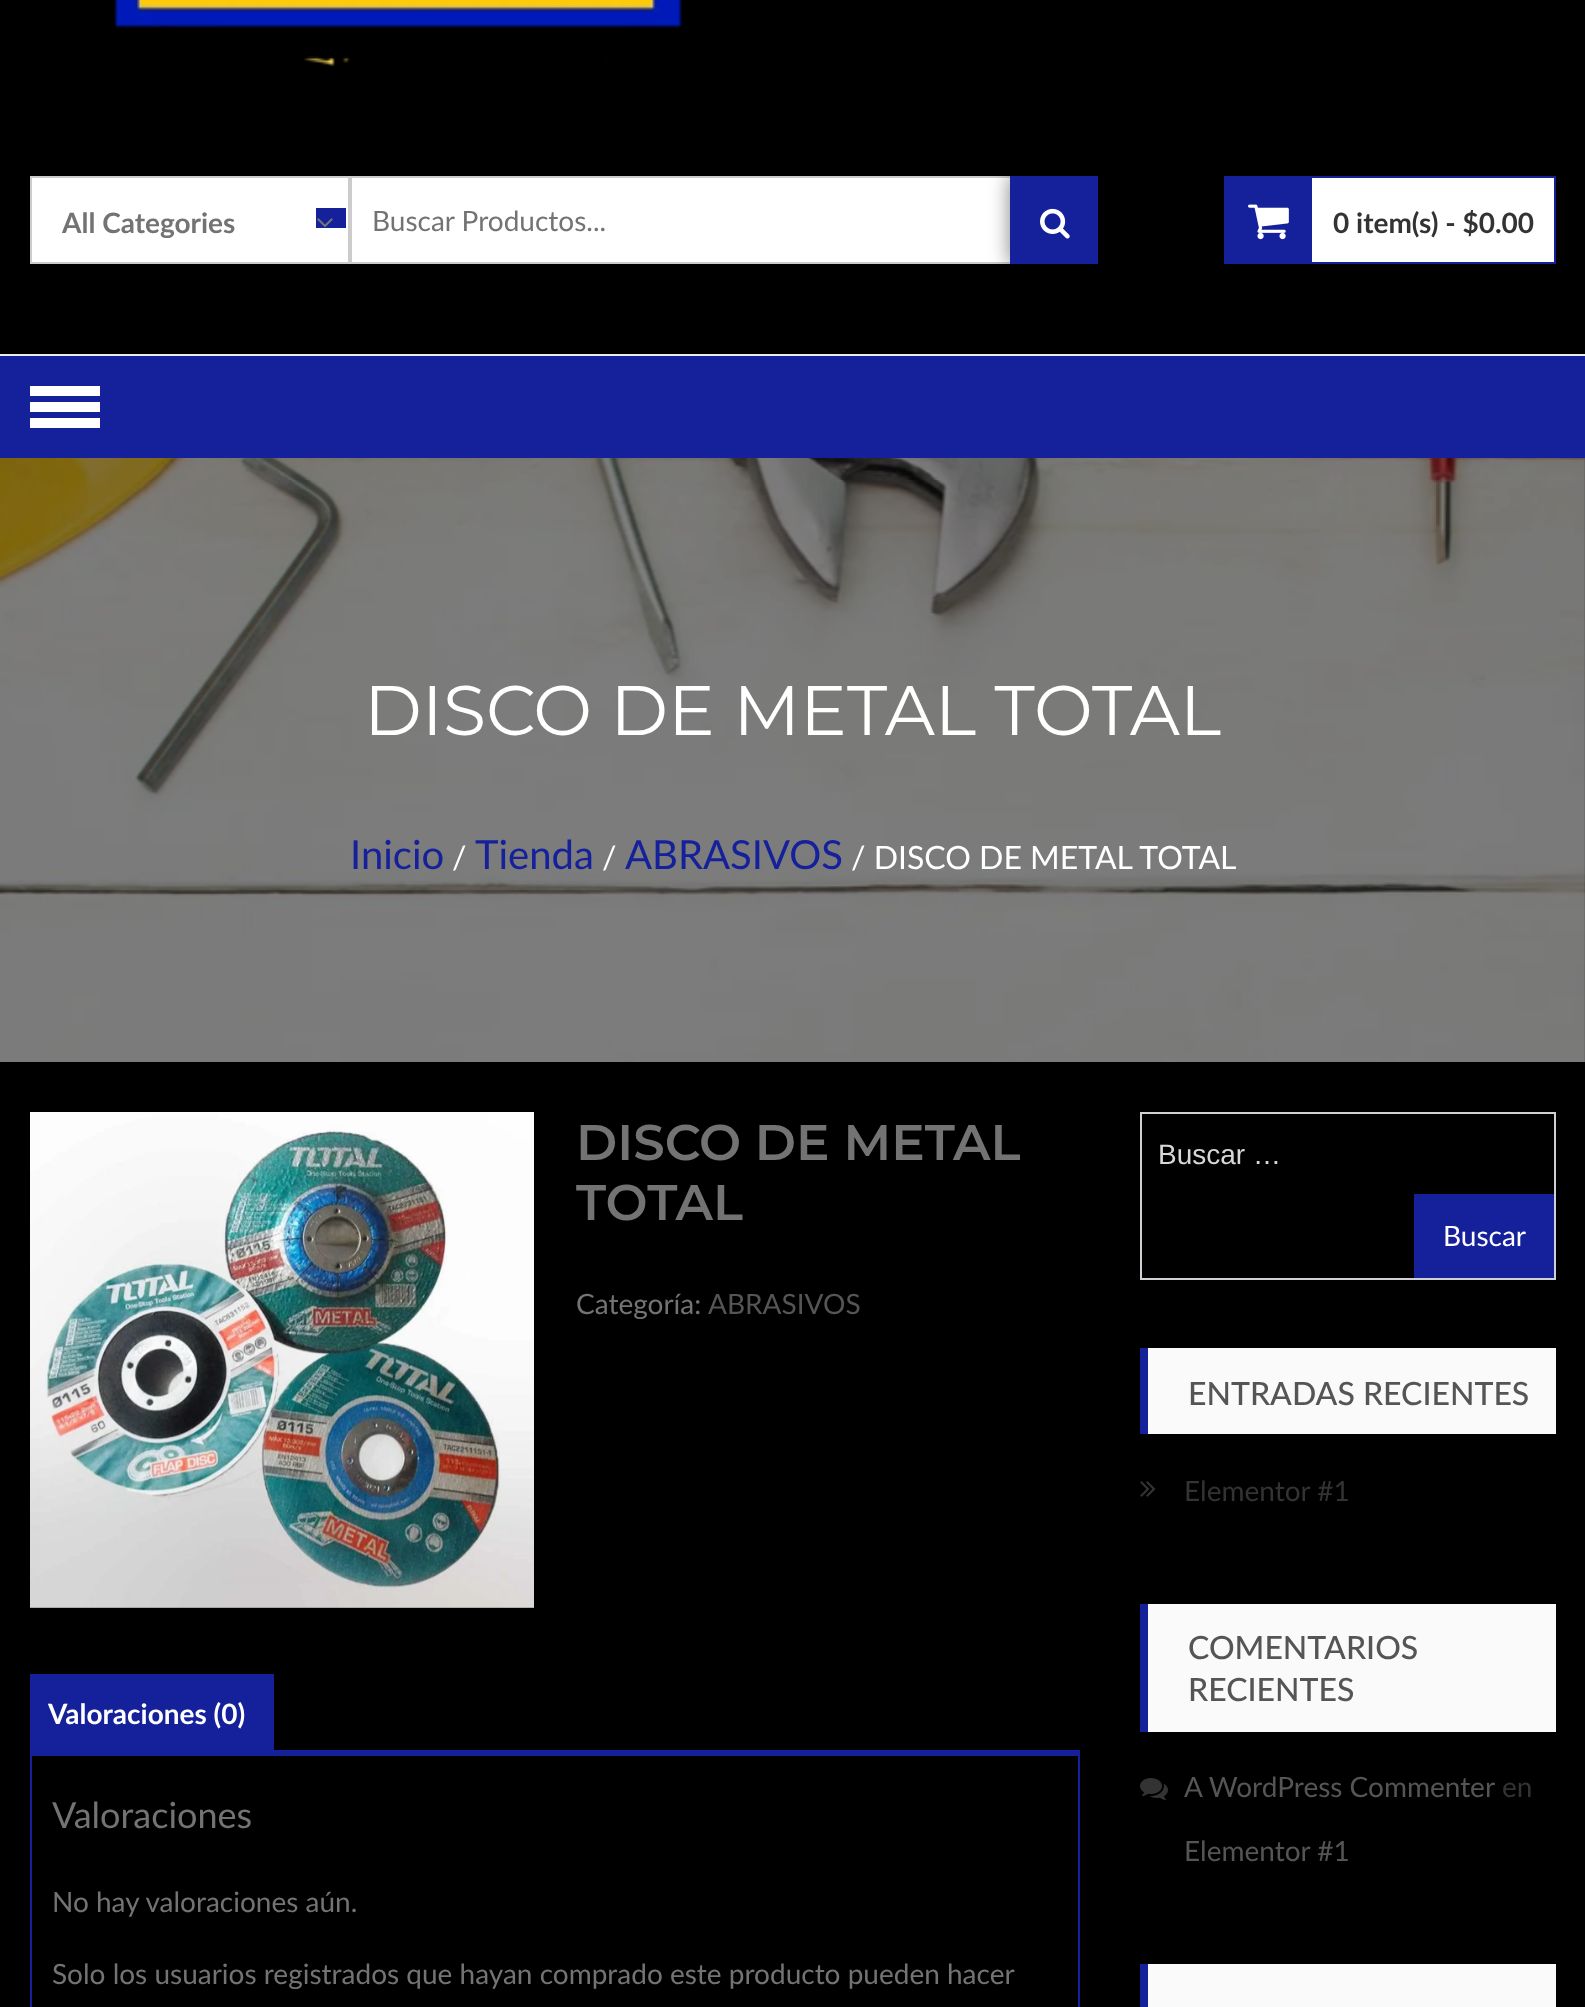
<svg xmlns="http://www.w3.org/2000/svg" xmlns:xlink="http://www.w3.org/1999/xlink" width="1585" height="2007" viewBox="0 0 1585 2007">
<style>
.cls-1{font:bold 28px Lato;fill:#737373}
.cls-2{font:28px Lato;fill:#737373}
.cls-3{font:bold 28px Lato;fill:#333333}
.cls-4{font:70px Montserrat;fill:#ffffff}
.cls-5{font:40px Lato;fill:#15209b}
.cls-6{font:32px Lato;fill:#ffffff}
.cls-7{font:600 50px Montserrat;fill:#737373}
.cls-8{font:28px Lato;fill:#555555}
.cls-9{font:bold 28px Lato;fill:#ffffff}
.cls-10{font:36px Lato;fill:#737373}
.cls-11{font:28px Liberation Sans;fill:#d8d8d8}
.cls-12{font:28px Lato;fill:#ffffff}
.cls-13{font:500 32px Lato;fill:#555555}
.cls-14{font:28px Lato;fill:#333333}
</style>
<rect width="100%" height="100%" fill="#000000"/>
<image xlink:href="image0.png" x="114" y="0" width="568" height="66"/>
<rect fill="#ffffff" stroke="#cccccc" stroke-width="2" x="31" y="177" width="318" height="86"/>
<rect fill="#15209b" x="316" y="208" width="30" height="20"/>
<image xlink:href="image1.png" x="317" y="218" width="16" height="10"/>
<rect fill="#ffffff" x="352" y="178" width="658" height="84"/>
<rect fill="none" stroke="#cccccc" stroke-width="2" x="351" y="177" width="746" height="86"/>
<rect fill="#000000" fill-opacity="0.5" filter="blur(10px)" x="1010" y="176" width="88" height="88"/>
<rect fill="#15209b" x="1010" y="176" width="88" height="88"/>
<image xlink:href="image2.png" x="1040" y="208" width="30" height="31"/>
<rect fill="#15209b" x="1224" y="176" width="86" height="88"/>
<image xlink:href="image3.png" x="1248" y="204" width="41" height="36"/>
<rect fill="#ffffff" stroke="#15209b" stroke-width="2" x="1311" y="177" width="244" height="86"/>
<rect fill="#15209b" x="0" y="356" width="1585" height="102"/>
<rect fill="#ececec" x="0" y="354" width="1585" height="2"/>
<rect fill="#ffffff" x="30" y="386" width="70" height="10"/>
<rect fill="#ffffff" x="30" y="402" width="70" height="10"/>
<rect fill="#ffffff" x="30" y="418" width="70" height="10"/>
<image xlink:href="image4.png" x="0" y="458" width="1585" height="604"/>
<image xlink:href="image5.png" x="30" y="1112" width="504" height="496"/>
<rect fill="#15209b" x="30" y="1674" width="244" height="80"/>
<rect fill="#15209b" x="274" y="1750" width="806" height="4"/>
<rect fill="none" stroke="#15209b" stroke-width="2" x="31" y="1755" width="1048" height="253"/>
<rect fill="none" stroke="#ced0d6" stroke-width="2" x="1141" y="1113" width="414" height="166"/>
<rect fill="#15209b" x="1414" y="1194" width="140" height="84"/>
<rect fill="#fafafa" x="1148" y="1348" width="408" height="86"/>
<rect fill="#15209b" x="1140" y="1348" width="8" height="86"/>
<image xlink:href="image6.png" x="1140" y="1481" width="16" height="16"/>
<rect fill="#fafafa" x="1148" y="1604" width="408" height="128"/>
<rect fill="#15209b" x="1140" y="1604" width="8" height="128"/>
<image xlink:href="image7.png" x="1140" y="1778" width="28" height="22"/>
<rect fill="#fafafa" x="1148" y="1964" width="408" height="43"/>
<rect fill="#15209b" x="1140" y="1964" width="8" height="43"/>
<text class="cls-1" x="62" y="233">All Categories</text>
<text class="cls-2" x="372" y="231">Buscar Productos...</text>
<text class="cls-3" x="1333" y="233">0 item(s) - $0.00</text>
<text class="cls-4" x="364" y="735">DISCO DE METAL TOTAL</text>
<text class="cls-5" x="350" y="869">Inicio</text>
<text class="cls-6" x="452" y="869">/</text>
<text class="cls-5" x="475" y="869">Tienda</text>
<text class="cls-6" x="602" y="869">/</text>
<text class="cls-5" x="625" y="869">ABRASIVOS</text>
<text class="cls-6" x="851" y="869">/ DISCO DE METAL TOTAL</text>
<text class="cls-7"><tspan x="576" y="1160">DISCO DE METAL</tspan><tspan x="576" y="1220">TOTAL</tspan></text>
<text class="cls-2" x="576" y="1314">Categoría:</text>
<text class="cls-8" x="708" y="1314">ABRASIVOS</text>
<text class="cls-9" x="48" y="1724">Valoraciones (0)</text>
<text class="cls-10" x="52" y="1828">Valoraciones</text>
<text class="cls-2" x="52" y="1912">No hay valoraciones aún.</text>
<text class="cls-2" x="52" y="1984">Solo los usuarios registrados que hayan comprado este producto pueden hacer</text>
<text class="cls-11" x="1158" y="1164">Buscar …</text>
<text class="cls-12" x="1443" y="1246">Buscar</text>
<text class="cls-13" x="1188" y="1405">ENTRADAS RECIENTES</text>
<text class="cls-14" x="1184" y="1501">Elementor #1</text>
<text class="cls-13"><tspan x="1188" y="1659">COMENTARIOS</tspan><tspan x="1188" y="1701">RECIENTES</tspan></text>
<text class="cls-8" x="1184" y="1797">A WordPress Commenter</text>
<text class="cls-14" x="1502" y="1797">en</text>
<text class="cls-8" x="1184" y="1861">Elementor #1</text>
</svg>
